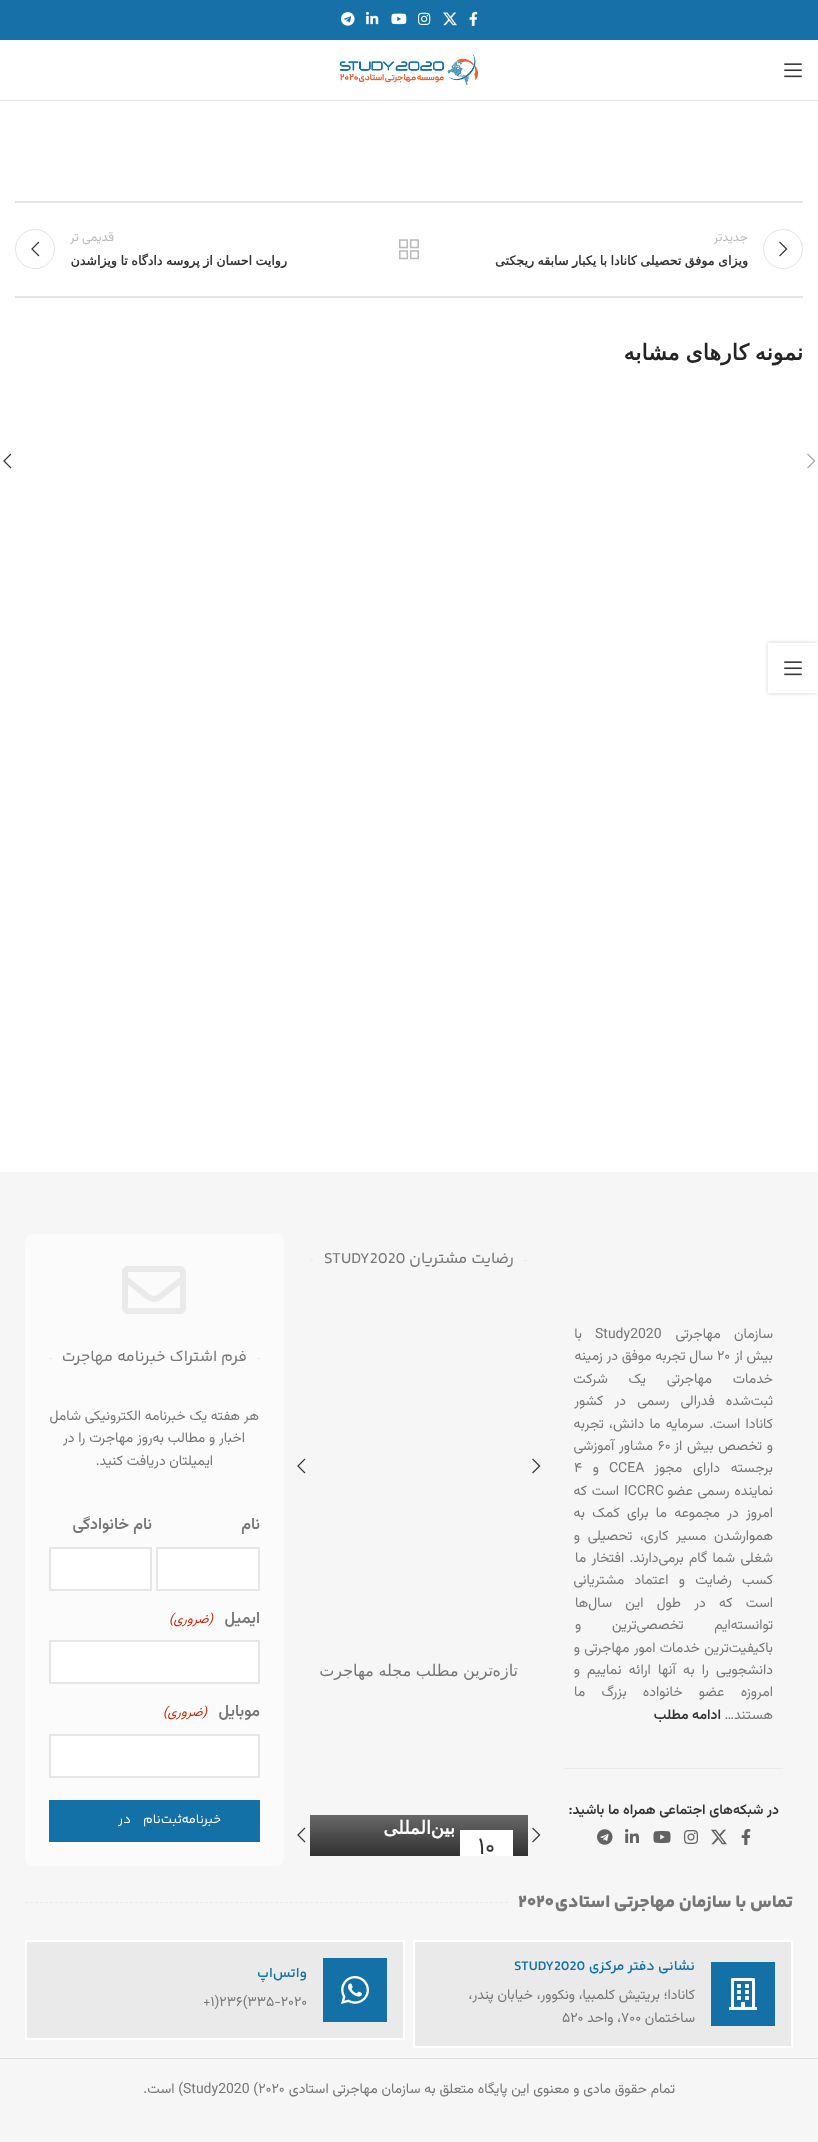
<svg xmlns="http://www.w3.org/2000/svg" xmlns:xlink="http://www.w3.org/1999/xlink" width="818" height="2142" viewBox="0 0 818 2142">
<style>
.cls-1{font:12.6px Vazirmatn;direction:rtl;fill:#bbbbbb}
.cls-2{font:bold 12.6px DejaVu Sans;direction:rtl;fill:#333333}
.cls-3{font:bold 22px DejaVu Sans;direction:rtl;fill:#242424}
.cls-4{font:14px Vazirmatn;direction:rtl;fill:#767676}
.cls-5{font:14px Vazirmatn;fill:#767676}
.cls-6{font:600 14px Vazirmatn;direction:rtl;fill:#333333}
.cls-7{font:16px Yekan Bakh;direction:rtl;fill:#767676}
.cls-8{font:16px Yekan Bakh;fill:#767676}
.cls-9{font:16px DejaVu Sans;direction:rtl;fill:#767676}
.cls-10{font:bold 18px DejaVu Sans;direction:rtl;fill:#ffffff}
.cls-11{font:24px Vazirmatn;fill:#333333}
.cls-12{font:600 16px Vazirmatn;direction:rtl;fill:#767676}
.cls-13{font:italic 13px Vazirmatn;direction:rtl;fill:#c02b0a}
.cls-14{font:13px Yekan Bakh;direction:rtl;fill:#ffffff}
.cls-15{font:800 18px Yekan Bakh;direction:rtl;fill:#767676}
.cls-16{font:800 18px Yekan Bakh;fill:#767676}
.cls-17{font:600 14px Yekan Bakh;direction:rtl;fill:#1371a8}
.cls-18{font:600 14px Yekan Bakh;fill:#1371a8}
</style>
<defs>
<linearGradient id="g1" gradientUnits="userSpaceOnUse" x1="419" y1="1690" x2="419" y2="1856"><stop offset="0.05" stop-color="#f6f6f6"/><stop offset="0.5" stop-color="#a0a0a0"/><stop offset="1" stop-color="#313131"/></linearGradient>
<clipPath id="clip1"><path d="M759 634H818V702H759ZM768 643H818V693H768Z" clip-rule="evenodd"/></clipPath>
</defs>
<rect width="100%" height="100%" fill="#ffffff"/>
<rect fill="#1671a8" x="0" y="0" width="818" height="40"/>
<image xlink:href="image0.png" x="469" y="11" width="9" height="15"/>
<image xlink:href="image1.png" x="443" y="12" width="14" height="14"/>
<image xlink:href="image2.png" x="418" y="12" width="13" height="13"/>
<image xlink:href="image3.png" x="391" y="13" width="16" height="12"/>
<image xlink:href="image4.png" x="366" y="11" width="13" height="14"/>
<image xlink:href="image5.png" x="341" y="12" width="14" height="14"/>
<rect fill="#e6e6e6" x="0" y="100" width="818" height="1"/>
<image xlink:href="image6.png" x="784" y="63" width="18" height="15"/>
<image xlink:href="image7.png" x="339" y="54" width="139" height="31"/>
<rect fill="#e4e4e4" x="15" y="201" width="788" height="2"/>
<rect fill="#e4e4e4" x="15" y="296" width="788" height="2"/>
<circle fill="none" stroke="#e4e4e4" cx="783" cy="249" r="19.5"/>
<image xlink:href="image8.png" x="779" y="241" width="9" height="16"/>
<image xlink:href="image9.png" x="399" y="239" width="20" height="21"/>
<circle fill="none" stroke="#e4e4e4" cx="35" cy="249" r="19.5"/>
<image xlink:href="image10.png" x="31" y="241" width="9" height="16"/>
<image xlink:href="image11.png" x="807" y="453" width="9" height="16"/>
<image xlink:href="image10.png" x="3" y="453" width="9" height="16"/>
<rect fill="#f6f6f6" x="0" y="1172" width="818" height="970"/>
<rect fill="#eaeaea" x="564" y="1768" width="219" height="1"/>
<image xlink:href="image12.png" x="741" y="1829" width="10" height="16"/>
<image xlink:href="image13.png" x="711" y="1829" width="16" height="16"/>
<image xlink:href="image14.png" x="684" y="1830" width="14" height="14"/>
<image xlink:href="image15.png" x="653" y="1831" width="18" height="12"/>
<image xlink:href="image16.png" x="625" y="1829" width="14" height="14"/>
<image xlink:href="image17.png" x="597" y="1829" width="16" height="16"/>
<path fill="none" stroke="#eaeaea" d="M524 1260.5H527"/>
<path fill="none" stroke="#eaeaea" d="M310 1260.5H313"/>
<image xlink:href="image18.png" x="532" y="1458" width="9" height="16"/>
<image xlink:href="image19.png" x="297" y="1458" width="9" height="16"/>
<rect fill="url(#g1)" x="310" y="1815" width="218" height="41"/>
<rect fill="#ffffff" x="460" y="1830" width="53" height="26"/>
<image xlink:href="image18.png" x="532" y="1827" width="9" height="16"/>
<image xlink:href="image19.png" x="297" y="1827" width="9" height="16"/>
<rect fill="#fbfbfb" x="25" y="1234" width="259" height="632" rx="8"/>
<image xlink:href="image20.png" x="122" y="1266" width="64" height="48"/>
<rect fill="#eaeaea" x="257" y="1358" width="3" height="1"/>
<rect fill="#eaeaea" x="49" y="1358" width="3" height="1"/>
<rect fill="#ffffff" stroke="#e6e6e6" stroke-width="2" x="157" y="1548" width="102" height="42"/>
<rect fill="#ffffff" stroke="#e6e6e6" stroke-width="2" x="50" y="1548" width="101" height="42"/>
<rect fill="#ffffff" stroke="#e6e6e6" stroke-width="2" x="50" y="1641" width="209" height="42"/>
<rect fill="#ffffff" stroke="#e6e6e6" stroke-width="2" x="50" y="1735" width="209" height="42"/>
<rect fill="#1371a8" x="49" y="1800" width="211" height="42"/>
<path fill="none" stroke="#eaeaea" stroke-dasharray="3 2" d="M25 1902.5H508"/>
<rect fill="#eaeaea" stroke="#ffffff" stroke-width="2" x="414" y="1941" width="378" height="106"/>
<rect fill="#1371a8" x="711" y="1962" width="64" height="64"/>
<image xlink:href="image21.png" x="729" y="1978" width="28" height="32"/>
<rect fill="#eaeaea" stroke="#ffffff" stroke-width="2" x="26" y="1941" width="378" height="98"/>
<rect fill="#1371a8" x="323" y="1958" width="64" height="64"/>
<image xlink:href="image22.png" x="341" y="1976" width="28" height="28"/>
<rect fill="#dcdcdc" x="0" y="2058" width="818" height="1"/>
<g clip-path="url(#clip1)">
<rect fill="#000000" fill-opacity="0.17" filter="blur(2.5px)" x="768" y="643" width="50" height="50"/>
</g>
<image xlink:href="image6.png" x="784" y="661" width="18" height="15"/>
<text class="cls-1" x="748" y="241">جدیدتر</text>
<text class="cls-2" x="748" y="265" word-spacing="-0.5">ویزای موفق تحصیلی کانادا با یکبار سابقه ریجکتی</text>
<text class="cls-1" x="114" y="241">قدیمی تر</text>
<text class="cls-2" x="287" y="265" word-spacing="-0.5">روایت احسان از پروسه دادگاه تا ویزاشدن</text>
<text class="cls-3" x="803" y="360" word-spacing="-1">نمونه کارهای مشابه</text>
<text class="cls-4" x="773" y="1338" word-spacing="9.5">سازمان مهاجرتی</text>
<text class="cls-5" x="595" y="1338">Study2020</text>
<text class="cls-4" x="582" y="1338">با</text>
<text class="cls-4" x="773" y="1360">بیش از</text>
<text class="cls-5" x="717" y="1360">۲۰</text>
<text class="cls-4" x="713" y="1360">سال تجربه موفق در زمینه</text>
<text class="cls-4"><tspan x="773" y="1383" word-spacing="17">خدمات مهاجرتی یک شرکت</tspan><tspan x="773" y="1405" word-spacing="7.5">ثبت‌شده فدرالی رسمی در کشور</tspan><tspan x="773" y="1428" word-spacing="1.5">کانادا است. سرمایه ما دانش، تجربه</tspan><tspan x="773" y="1450" word-spacing="1">و تخصص بیش از</tspan></text>
<text class="cls-5" x="658" y="1450">۶۰</text>
<text class="cls-4" x="653" y="1450" word-spacing="1">مشاور آموزشی</text>
<text class="cls-4" x="773" y="1472" word-spacing="7">برجسته دارای مجوز</text>
<text class="cls-5" x="609" y="1472">CCEA</text>
<text class="cls-4" x="599" y="1472">و</text>
<text class="cls-5" x="574" y="1472">۴</text>
<text class="cls-4" x="773" y="1495" word-spacing="1">نماینده رسمی عضو</text>
<text class="cls-5" x="624" y="1495">ICCRC</text>
<text class="cls-4" x="619" y="1495" word-spacing="1">است که</text>
<text class="cls-4"><tspan x="773" y="1517" word-spacing="3.5">امروز در مجموعه ما برای کمک به</tspan><tspan x="773" y="1540" word-spacing="4">هموارشدن مسیر کاری، تحصیلی و</tspan><tspan x="773" y="1562" word-spacing="1.5">شغلی شما گام برمی‌دارند. افتخار ما</tspan><tspan x="773" y="1584" word-spacing="6.5">کسب رضایت و اعتماد مشتریانی</tspan><tspan x="773" y="1607" word-spacing="9.5">است که در طول این سال‌ها</tspan><tspan x="773" y="1629" word-spacing="27">توانسته‌ایم تخصصی‌ترین و</tspan><tspan x="773" y="1652" word-spacing="0.5">باکیفیت‌ترین خدمات امور مهاجرتی و</tspan><tspan x="773" y="1674" word-spacing="3.5">دانشجویی را به آنها ارائه نماییم و</tspan><tspan x="773" y="1696" word-spacing="12.5">امروزه عضو خانواده بزرگ ما</tspan><tspan x="773" y="1719">هستند…</tspan></text>
<text class="cls-6" x="721" y="1719">ادامه مطلب</text>
<text class="cls-6" x="779" y="1814">در شبکه‌های اجتماعی همراه ما باشید:</text>
<text class="cls-7" x="514" y="1263">رضایت مشتریان</text>
<text class="cls-8" x="324" y="1263">STUDY2020</text>
<text class="cls-9" x="493" y="1676" word-spacing="-0.5">ترین مطلب مجله مهاجرت</text>
<text class="cls-9" x="518" y="1676">تازه</text>
<text class="cls-10" x="455" y="1834">بین</text>
<text class="cls-10" x="431" y="1834">المللی</text>
<text class="cls-11" x="478" y="1854">۱۰</text>
<text class="cls-7" x="247" y="1361">فرم اشتراک خبرنامه مهاجرت</text>
<text class="cls-4" x="259" y="1420">هر هفته یک خبرنامه الکترونیکی شامل</text>
<text class="cls-4" x="245" y="1442">اخبار و مطالب به‌روز مهاجرت را در</text>
<text class="cls-4" x="213" y="1465">ایمیلتان دریافت کنید.</text>
<text class="cls-12" x="260" y="1529">نام</text>
<text class="cls-12" x="152" y="1529">نام خانوادگی</text>
<text class="cls-12" x="260" y="1623">ایمیل</text>
<text class="cls-13" x="213" y="1623">(ضروری)</text>
<text class="cls-12" x="260" y="1716">موبایل</text>
<text class="cls-13" x="207" y="1716">(ضروری)</text>
<text class="cls-14" x="221" y="1823">خبرنامه</text>
<text class="cls-14" x="182" y="1823" word-spacing="9">ثبت‌نام در</text>
<text class="cls-15" x="793" y="1907">تماس با سازمان مهاجرتی استادی</text>
<text class="cls-16" x="518" y="1907">۲۰۲۰</text>
<text class="cls-17" x="695" y="1970">نشانی دفتر مرکزی</text>
<text class="cls-18" x="514" y="1970">STUDY2020</text>
<text class="cls-4"><tspan x="695" y="1999">کانادا؛ بریتیش کلمبیا، ونکوور، خیابان پندر،</tspan><tspan x="695" y="2022">ساختمان</tspan></text>
<text class="cls-5" x="621" y="2022">۷۰۰</text>
<text class="cls-4" x="621" y="2022">، واحد</text>
<text class="cls-5" x="562" y="2022">۵۲۰</text>
<text class="cls-17" x="307" y="1977">واتس‌اپ</text>
<text class="cls-5" x="203" y="2006">+۱)۲۳۶(۳۳۵-۲۰۲۰</text>
<text class="cls-4" x="675" y="2093">تمام حقوق مادی و معنوی این پایگاه متعلق به سازمان مهاجرتی استادی</text>
<text class="cls-5" x="183" y="2093">Study2020 (۲۰۲۰</text>
<text class="cls-4" x="183" y="2093">) است.</text>
</svg>
